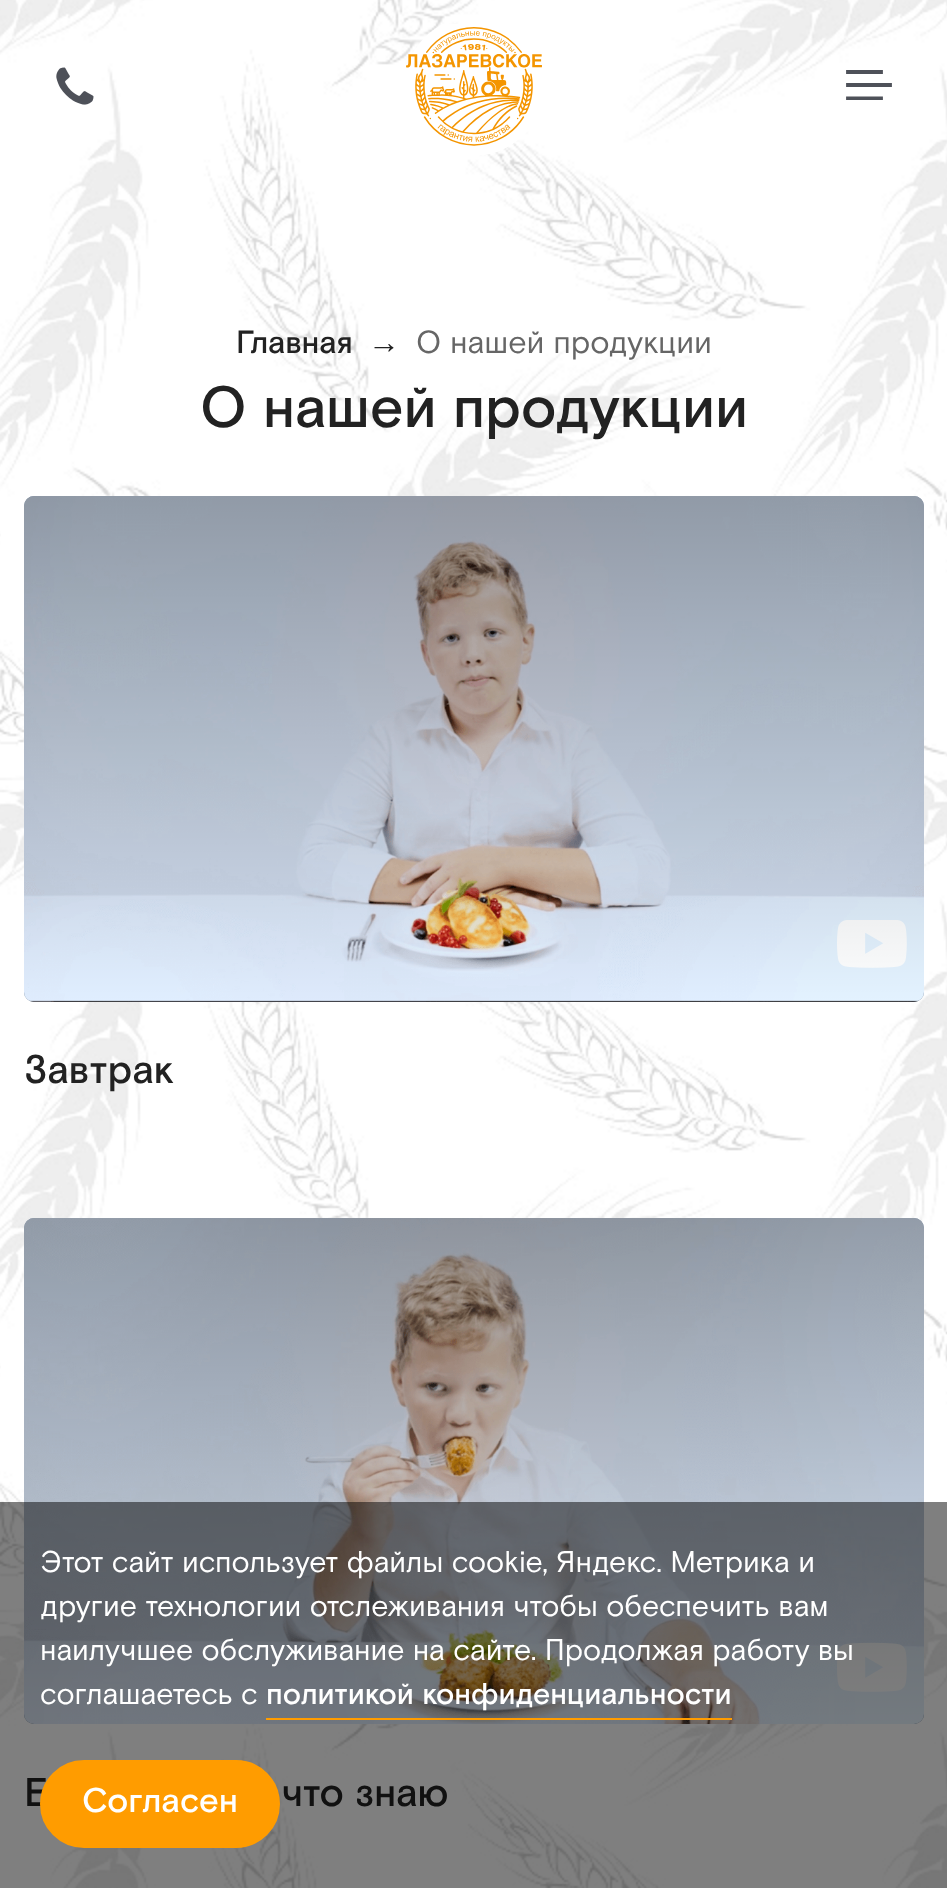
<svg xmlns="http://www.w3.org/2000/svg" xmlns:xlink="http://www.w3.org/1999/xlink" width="947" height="1888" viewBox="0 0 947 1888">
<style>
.cls-1{font:500 32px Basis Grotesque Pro;fill:#222222}
.cls-2{font:32px Liberation Sans;fill:#222222}
.cls-3{font:32px Basis Grotesque Pro;fill:#666666}
.cls-4{font:500 58.25px Basis Grotesque Pro;fill:#222222}
.cls-5{font:500 40px Basis Grotesque Pro;fill:#222222}
.cls-6{font:30px Basis Grotesque Pro;fill:#ffffff}
.cls-7{font:500 30px Basis Grotesque Pro;fill:#ffffff}
.cls-8{font:500 34.5px Basis Grotesque Pro;fill:#ffffff}
</style>
<defs>
<clipPath id="clip1"><rect x="844" y="70" width="48" height="30"/></clipPath>
<linearGradient id="g1" gradientUnits="userSpaceOnUse" x1="474" y1="496" x2="474" y2="1002"><stop offset="0" stop-color="#000000" stop-opacity="0.33"/><stop offset="1" stop-color="#000000" stop-opacity="0"/></linearGradient>
<linearGradient id="g2" gradientUnits="userSpaceOnUse" x1="474" y1="1218" x2="474" y2="1724"><stop offset="0" stop-color="#000000" stop-opacity="0.33"/><stop offset="1" stop-color="#000000" stop-opacity="0"/></linearGradient>
</defs>
<rect width="100%" height="100%" fill="#ffffff"/>
<image xlink:href="image0.png" x="0" y="0" width="947" height="1888"/>
<image xlink:href="image1.png" x="56" y="67" width="38" height="38"/>
<image xlink:href="image2.png" x="406" y="24" width="136" height="131"/>
<g clip-path="url(#clip1)">
<path fill="none" stroke="#4e5159" stroke-width="3.8" stroke-linecap="square" d="M848 72H881M848 85H890M848 98.5H881"/>
</g>
<rect fill="#64768d" x="24" y="496" width="900" height="506" rx="10"/>
<image xlink:href="image3.png" x="24" y="496" width="900" height="506"/>
<image xlink:href="image4.png" x="837" y="920" width="70" height="48"/>
<rect fill="url(#g1)" x="24" y="496" width="900" height="506" rx="10"/>
<rect fill="#64768d" x="24" y="1218" width="900" height="506" rx="10"/>
<image xlink:href="image5.png" x="24" y="1218" width="900" height="506"/>
<image xlink:href="image6.png" x="837" y="1642" width="70" height="50"/>
<rect fill="url(#g2)" x="24" y="1218" width="900" height="506" rx="10"/>
<text class="cls-1" x="236" y="353">Главная</text>
<text class="cls-2" x="368" y="353">→</text>
<text class="cls-3" x="416" y="353">О нашей продукции</text>
<text class="cls-4" x="200" y="427">О нашей продукции</text>
<text class="cls-5" x="24" y="1083">Завтрак</text>
<text class="cls-5" x="24" y="1806">Е</text>
<text class="cls-5" x="281" y="1806">что знаю</text>
<rect fill="#000000" fill-opacity="0.5" x="0" y="1502" width="947" height="386"/>
<text class="cls-6"><tspan x="40" y="1572">Этот сайт использует файлы cookie, Яндекс. Метрика и</tspan><tspan x="40" y="1616">другие технологии отслеживания чтобы обеспечить вам</tspan><tspan x="40" y="1660">наилучшее обслуживание на сайте. Продолжая работу вы</tspan><tspan x="40" y="1704">соглашаетесь с</tspan></text>
<rect fill="#ff9c00" x="266" y="1718" width="466" height="2"/>
<text class="cls-7" x="266" y="1704">политикой конфиденциальности</text>
<rect fill="#ff9c00" stroke="#ff9c00" stroke-width="2" x="41" y="1761" width="238" height="86" rx="43"/>
<text class="cls-8" x="82" y="1812">Согласен</text>
</svg>
